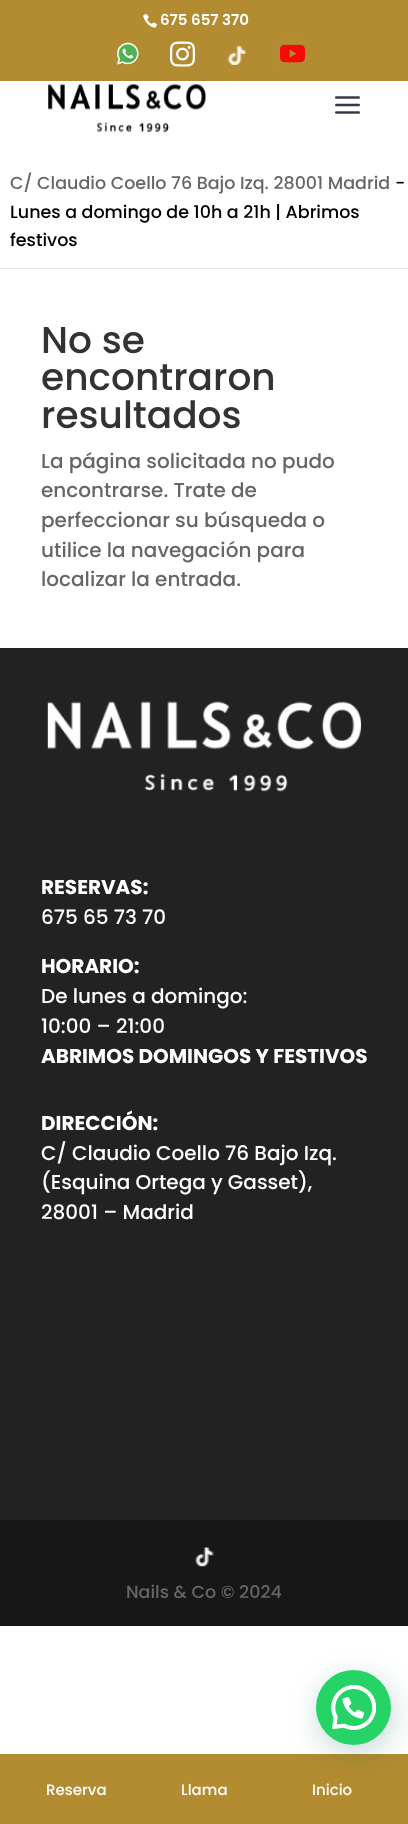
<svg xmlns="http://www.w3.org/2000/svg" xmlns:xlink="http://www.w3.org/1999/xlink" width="408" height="1824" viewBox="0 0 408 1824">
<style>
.cls-1{font:600 15px Poppins;fill:#ffffff}
.cls-2{font:500 17.5px Poppins;fill:#666666}
.cls-3{font:500 17.5px Poppins;fill:#000000}
.cls-4{font:500 37.5px Poppins;fill:#333333}
.cls-5{font:500 20px Poppins;fill:#666666}
.cls-6{font:bold 20px Poppins;fill:#ffffff}
.cls-7{font:500 20px Poppins;fill:#ffffff}
.cls-8{font:500 15px Poppins;fill:#ffffff}
</style>
<rect width="100%" height="100%" fill="#ffffff"/>
<rect fill="#b38b31" x="0" y="0" width="408" height="81"/>
<image xlink:href="image0.png" x="143" y="14" width="14" height="14"/>
<image xlink:href="image1.png" x="116" y="42" width="23" height="24"/>
<image xlink:href="image2.png" x="170" y="41" width="25" height="26"/>
<image xlink:href="image3.png" x="227" y="46" width="20" height="19"/>
<image xlink:href="image4.png" x="276" y="37" width="29" height="33"/>
<path fill="#e6e6e6" d="M0 268V269H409V58V268Z"/>
<image xlink:href="image5.png" x="48" y="83" width="158" height="50"/>
<image xlink:href="image6.png" x="335" y="96" width="25" height="18"/>
<rect fill="#222222" x="0" y="648" width="408" height="872"/>
<image xlink:href="image7.png" x="47" y="701" width="315" height="91"/>
<rect fill="#171717" x="0" y="1520" width="408" height="106"/>
<image xlink:href="image8.png" x="195" y="1547" width="19" height="20"/>
<rect fill="#b38b31" x="0" y="1754" width="408" height="70"/>
<rect fill="#075e54" fill-opacity="0.24" filter="blur(15px)" x="318" y="1678" width="75" height="75" rx="37.5"/>
<circle fill="#25d366" cx="353.5" cy="1707.5" r="37.5"/>
<image xlink:href="image9.png" x="331" y="1685" width="45" height="45"/>
<text class="cls-1" x="160" y="25">675 657 370</text>
<text class="cls-2" x="10" y="189">C/ Claudio Coello 76 Bajo Izq. 28001 Madrid</text>
<text class="cls-3" x="395" y="189">-</text>
<text class="cls-3"><tspan x="10" y="218">Lunes a domingo de 10h a 21h | Abrimos</tspan><tspan x="10" y="246">festivos</tspan></text>
<text class="cls-4"><tspan x="41" y="353">No se</tspan><tspan x="41" y="390">encontraron</tspan><tspan x="41" y="428">resultados</tspan></text>
<text class="cls-5"><tspan x="41" y="468">La página solicitada no pudo</tspan><tspan x="41" y="497">encontrarse. Trate de</tspan><tspan x="41" y="527">perfeccionar su búsqueda o</tspan><tspan x="41" y="557">utilice la navegación para</tspan><tspan x="41" y="586">localizar la entrada.</tspan></text>
<text class="cls-6" x="41" y="894">RESERVAS:</text>
<text class="cls-7" x="41" y="924">675 65 73 70</text>
<text class="cls-6" x="41" y="973">HORARIO:</text>
<text class="cls-7"><tspan x="41" y="1003">De lunes a domingo:</tspan><tspan x="41" y="1033">10:00 – 21:00</tspan></text>
<text class="cls-6" x="41" y="1063">ABRIMOS DOMINGOS Y FESTIVOS</text>
<text class="cls-6" x="41" y="1130">DIRECCIÓN:</text>
<text class="cls-7"><tspan x="41" y="1160">C/ Claudio Coello 76 Bajo Izq.</tspan><tspan x="41" y="1189">(Esquina Ortega y Gasset),</tspan><tspan x="41" y="1219">28001 – Madrid</tspan></text>
<text class="cls-2" x="126" y="1598">Nails &amp; Co © 2024</text>
<text class="cls-8" x="46" y="1795">Reserva</text>
<text class="cls-8" x="181" y="1795">Llama</text>
<text class="cls-8" x="312" y="1795">Inicio</text>
</svg>
